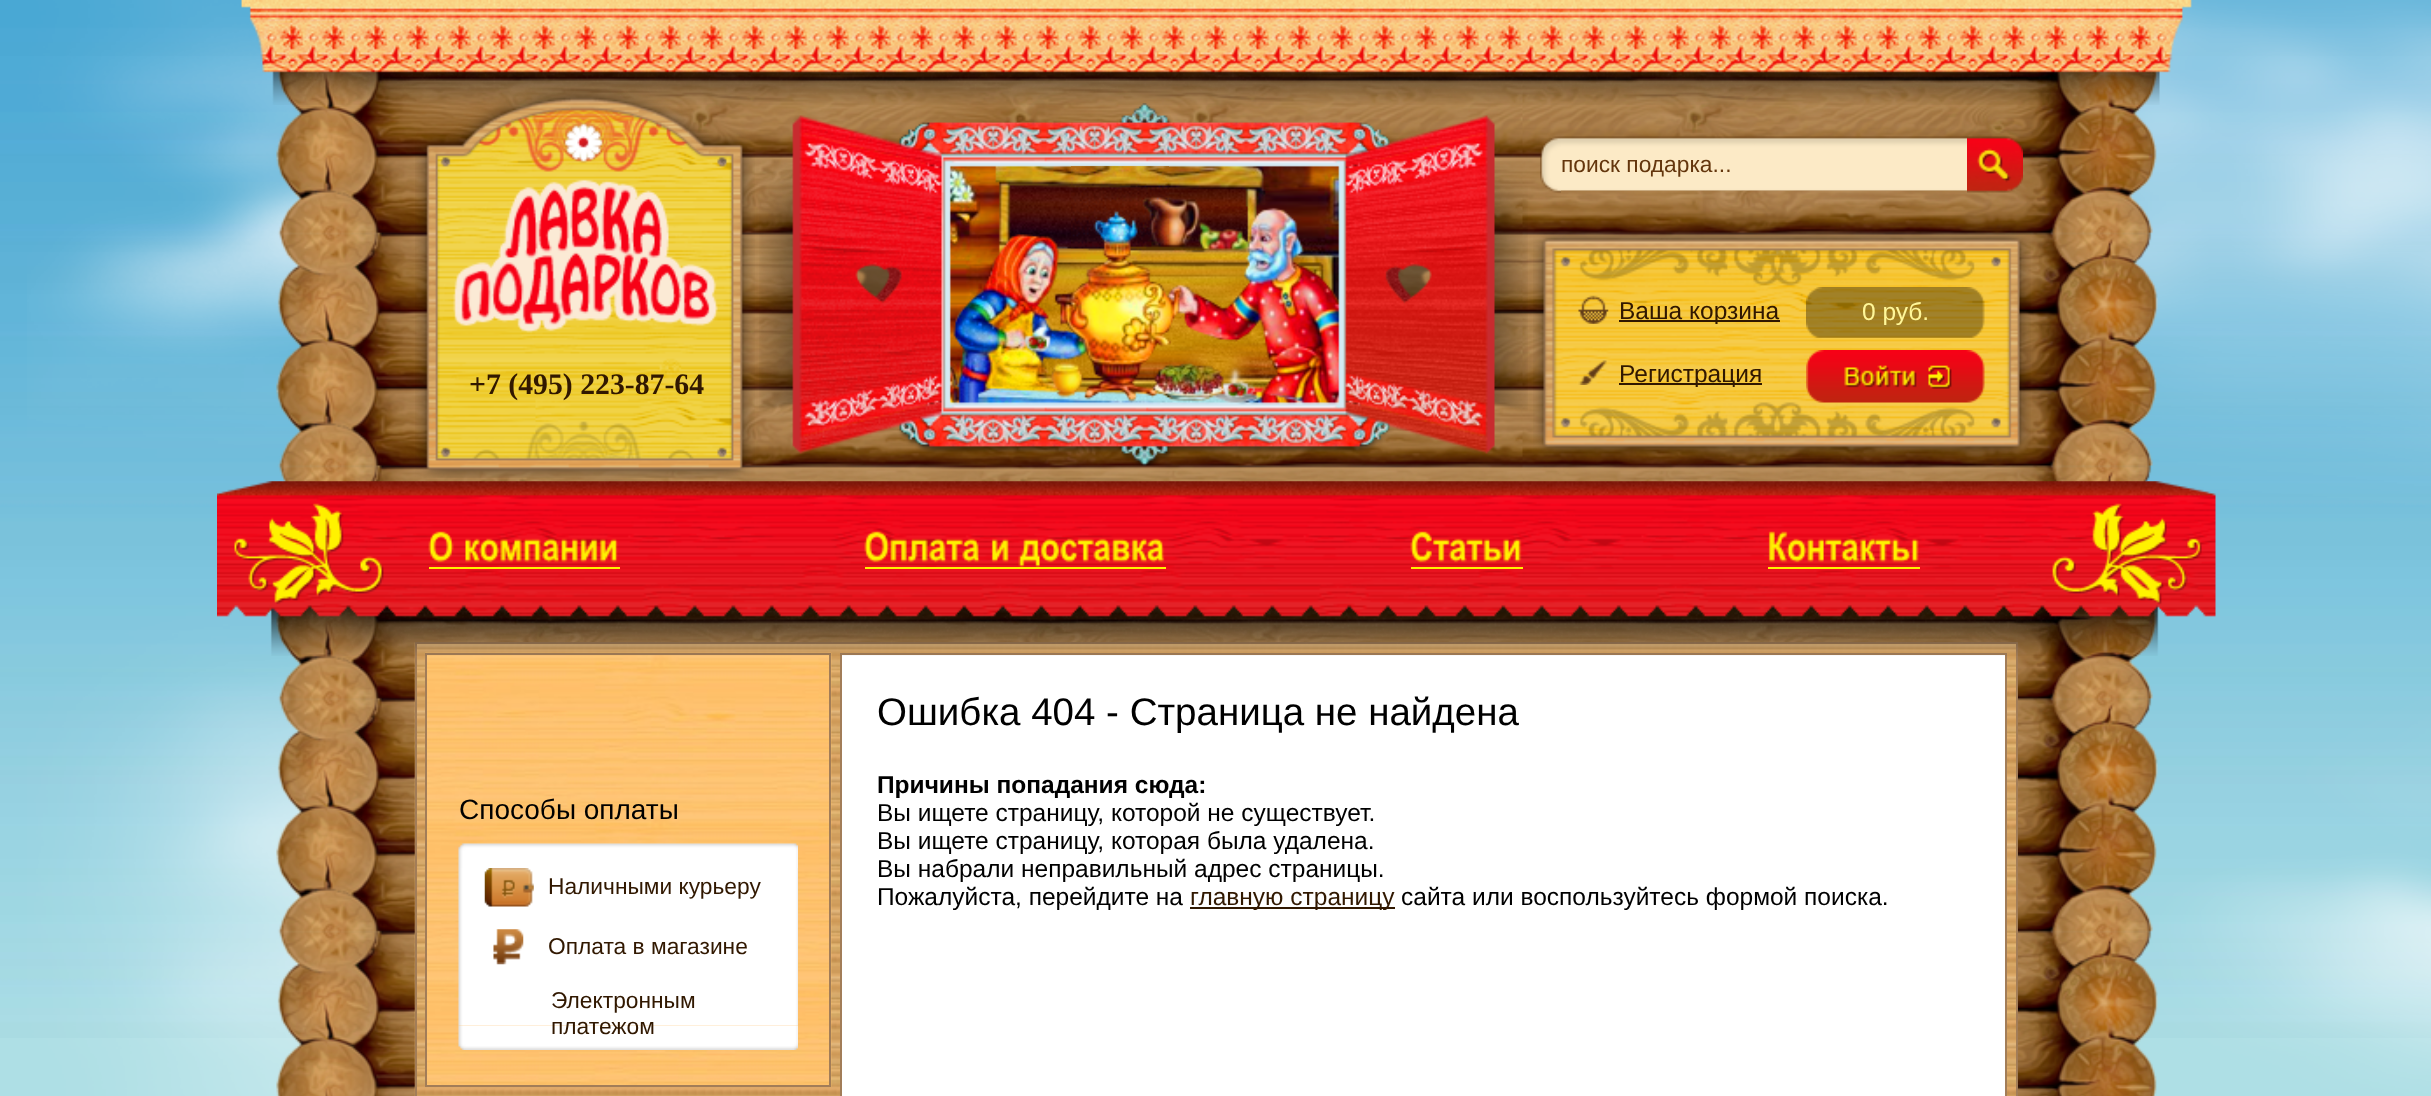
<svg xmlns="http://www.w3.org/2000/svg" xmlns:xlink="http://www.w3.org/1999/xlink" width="2431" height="1096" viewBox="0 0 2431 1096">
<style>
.cls-1{font:22.75px Liberation Sans;fill:#64360d}
.cls-2{font:bold 29.75px Liberation Serif;fill:#311800}
.cls-3{font:24.5px Liberation Sans;fill:#311800}
.cls-4{font:24.5px Liberation Sans;fill:#fff799}
.cls-5{font:28px Liberation Sans;fill:#000000}
.cls-6{font:22.75px Liberation Sans;fill:#311800}
.cls-7{font:38.5px Liberation Sans;fill:#000000}
.cls-8{font:bold 24.5px Liberation Sans;fill:#000000}
.cls-9{font:24.5px Liberation Sans;fill:#000000}
</style>
<rect width="100%" height="100%" fill="#aedfe5"/>
<image xlink:href="image0.png" x="0" y="0" width="2431" height="1038"/>
<image xlink:href="image1.png" x="27" y="0" width="2404" height="1096"/>
<image xlink:href="image2.png" x="276" y="71" width="1882" height="1025"/>
<image xlink:href="image3.png" x="241" y="0" width="1951" height="105"/>
<image xlink:href="image4.png" x="759" y="103" width="769" height="363"/>
<image xlink:href="image5.png" x="1540" y="136" width="21" height="57"/>
<image xlink:href="image6.png" x="1561" y="136" width="406" height="55"/>
<image xlink:href="image7.png" x="1967" y="136" width="56" height="57"/>
<image xlink:href="image8.png" x="1071" y="166" width="98" height="93"/>
<image xlink:href="image9.png" x="415" y="88" width="340" height="390"/>
<image xlink:href="image10.png" x="1533" y="230" width="498" height="227"/>
<image xlink:href="image11.png" x="1578" y="295" width="31" height="29"/>
<rect fill="#311800" x="1619" y="320" width="161" height="2"/>
<image xlink:href="image12.png" x="1806" y="287" width="179" height="51"/>
<image xlink:href="image13.png" x="1578" y="360" width="29" height="25"/>
<rect fill="#311800" x="1619" y="383" width="143" height="2"/>
<image xlink:href="image14.png" x="1806" y="350" width="179" height="53"/>
<image xlink:href="image23.png" x="414" y="642" width="1602" height="454"/>
<rect fill="none" stroke="#a27d58" stroke-width="2" x="416" y="643" width="1601" height="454"/>
<image xlink:href="image24.png" x="425" y="652" width="407" height="435"/>
<rect fill="none" stroke="#a27d58" stroke-width="2" x="426" y="654" width="404" height="432"/>
<rect fill="#ffffff" stroke="#a27d58" stroke-width="2" x="841" y="654" width="1165" height="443"/>
<image xlink:href="image15.png" x="217" y="481" width="1999" height="175"/>
<rect fill="#fff200" x="429" y="567" width="191" height="2"/>
<image xlink:href="image16.png" x="428" y="531" width="26" height="32"/>
<image xlink:href="image17.png" x="465" y="538" width="153" height="25"/>
<rect fill="#fff200" x="865" y="567" width="301" height="2"/>
<image xlink:href="image18.png" x="864" y="531" width="116" height="32"/>
<image xlink:href="image19.png" x="991" y="538" width="18" height="25"/>
<image xlink:href="image20.png" x="1018" y="538" width="147" height="29"/>
<rect fill="#fff200" x="1411" y="567" width="112" height="2"/>
<image xlink:href="image21.png" x="1410" y="531" width="112" height="32"/>
<rect fill="#fff200" x="1768" y="567" width="152" height="2"/>
<image xlink:href="image22.png" x="1768" y="531" width="151" height="32"/>
<image xlink:href="image25.png" x="458" y="843" width="340" height="25"/>
<image xlink:href="image29.png" x="458" y="1025" width="340" height="25"/>
<image xlink:href="image26.png" x="458" y="868" width="340" height="158"/>
<image xlink:href="image27.png" x="484" y="868" width="50" height="39"/>
<image xlink:href="image28.png" x="493" y="929" width="31" height="36"/>
<rect fill="#311800" x="1190" y="907" width="205" height="2"/>
<text class="cls-1" x="1561" y="172">поиск подарка...</text>
<text class="cls-2" x="469" y="394">+7 (495) 223-87-64</text>
<text class="cls-3" x="1619" y="319">Ваша корзина</text>
<text class="cls-4" x="1862" y="320">0 руб.</text>
<text class="cls-3" x="1619" y="382">Регистрация</text>
<text class="cls-5" x="459" y="819">Способы оплаты</text>
<text class="cls-6" x="548" y="894">Наличными курьеру</text>
<text class="cls-6" x="548" y="954">Оплата в магазине</text>
<text class="cls-6"><tspan x="551" y="1008">Электронным</tspan><tspan x="551" y="1034">платежом</tspan></text>
<text class="cls-7" x="877" y="725">Ошибка 404 - Страница не найдена</text>
<text class="cls-8" x="877" y="793">Причины попадания сюда:</text>
<text class="cls-9"><tspan x="877" y="821">Вы ищете страницу, которой не существует.</tspan><tspan x="877" y="849">Вы ищете страницу, которая была удалена.</tspan><tspan x="877" y="877">Вы набрали неправильный адрес страницы.</tspan><tspan x="877" y="905">Пожалуйста, перейдите на</tspan></text>
<text class="cls-3" x="1190" y="905">главную страницу</text>
<text class="cls-9" x="1401" y="905">сайта или воспользуйтесь формой поиска.</text>
</svg>
